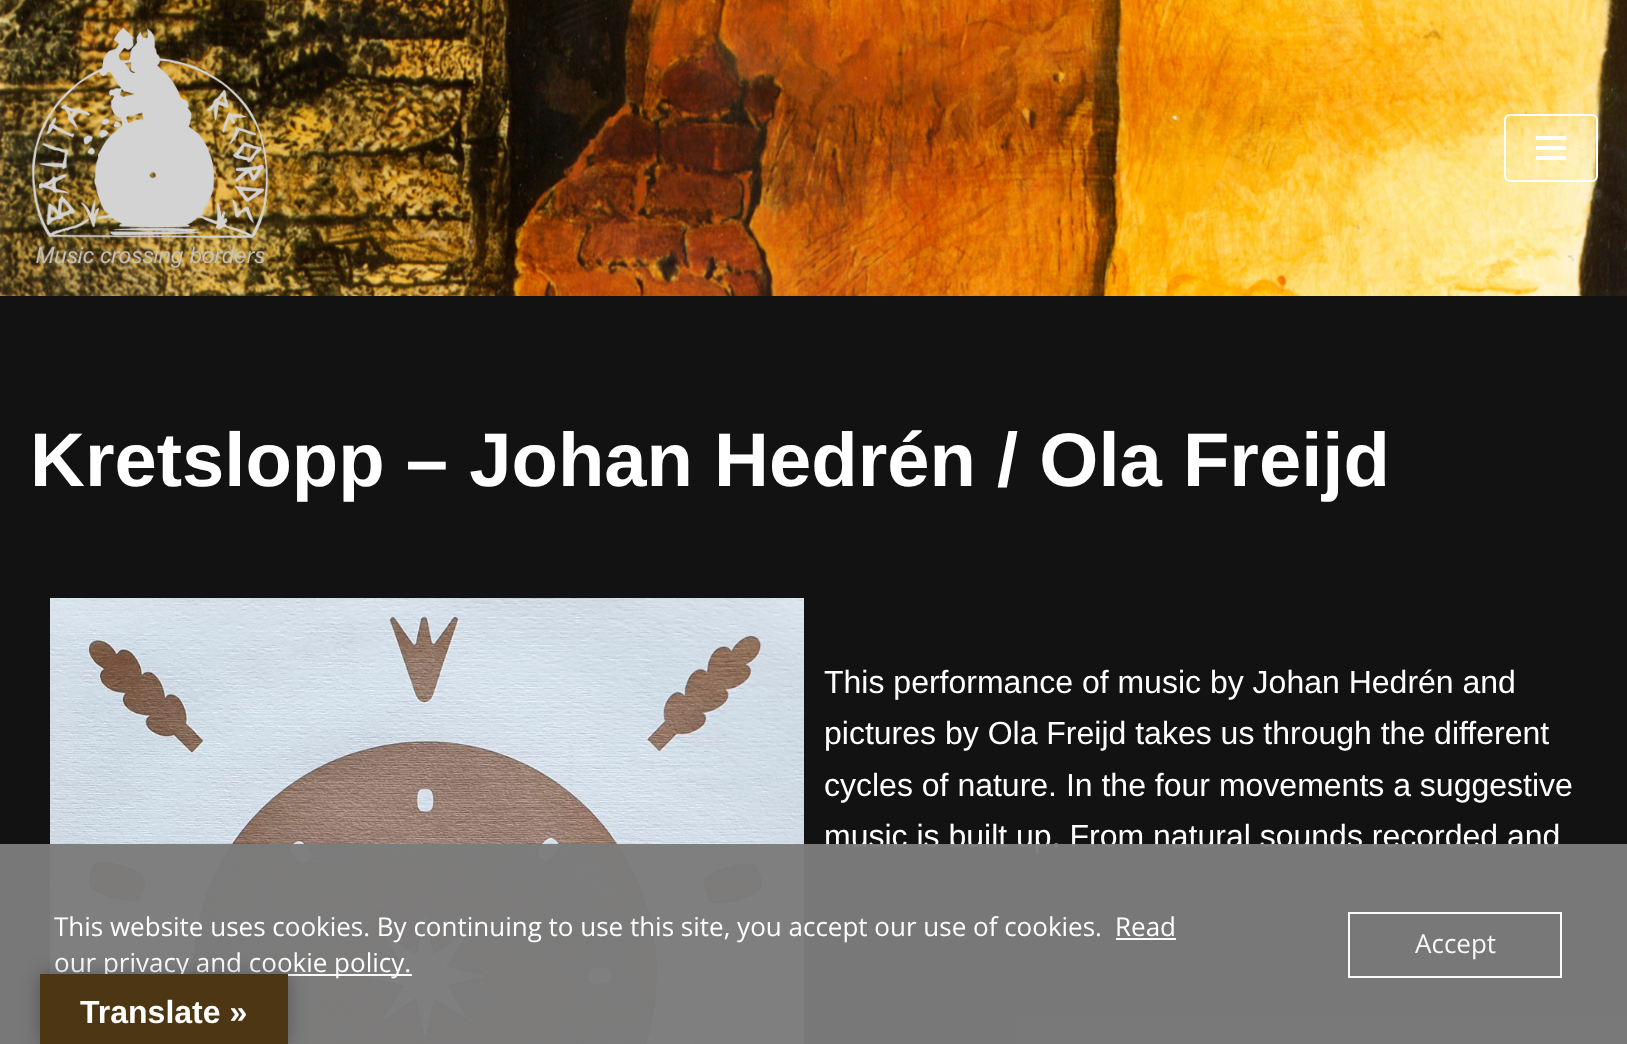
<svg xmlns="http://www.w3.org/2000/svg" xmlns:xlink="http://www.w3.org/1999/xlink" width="1627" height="1044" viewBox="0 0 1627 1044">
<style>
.cls-1{font:bold 76px Liberation Sans;fill:#ffffff}
.cls-2{font:32px Liberation Sans;fill:#ffffff}
.cls-3{font:26px Open Sans;fill:#ffffff}
.cls-4{font:26px Open Sans;fill:#f8f8f8}
.cls-5{font:bold 32px Liberation Sans;fill:#ffffff}
</style>
<rect width="100%" height="100%" fill="#121212"/>
<image xlink:href="image0.png" x="0" y="0" width="1627" height="296"/>
<image xlink:href="image1.png" x="31" y="28" width="238" height="240"/>
<rect fill="none" stroke="#ffffff" stroke-width="2" x="1505" y="115" width="92" height="66" rx="5"/>
<rect fill="#ffffff" x="1536" y="136" width="30" height="4"/>
<rect fill="#ffffff" x="1536" y="146" width="30" height="4"/>
<rect fill="#ffffff" x="1536" y="156" width="30" height="4"/>
<image xlink:href="image2.png" x="50" y="598" width="754" height="446"/>
<text class="cls-1" x="30" y="486">Kretslopp – Johan Hedrén / Ola Freijd</text>
<text class="cls-2"><tspan x="824" y="693">This performance of music by Johan Hedrén and</tspan><tspan x="824" y="744">pictures by Ola Freijd takes us through the different</tspan><tspan x="824" y="796">cycles of nature. In the four movements a suggestive</tspan><tspan x="824" y="847">music is built up. From natural sounds recorded and</tspan></text>
<rect fill="#7c7c7c" fill-opacity="0.97" x="0" y="844" width="1627" height="200"/>
<text class="cls-3" x="54" y="936">This website uses cookies. By continuing to use this site, you accept our use of cookies.</text>
<text class="cls-3" x="1115" y="936">Read</text>
<rect fill="#ffffff" fill-opacity="0.97" x="1116" y="938" width="60" height="2"/>
<rect fill="#ffffff" fill-opacity="0.97" x="288" y="974" width="124" height="2"/>
<text class="cls-3" x="54" y="972">our privacy and cookie policy.</text>
<rect fill="none" stroke="#ffffff" stroke-opacity="0.97" stroke-width="2" x="1349" y="913" width="212" height="64"/>
<text class="cls-4" x="1415" y="953">Accept</text>
<rect fill="#000000" fill-opacity="0.3" filter="blur(9px)" x="40" y="974" width="248" height="70"/>
<rect fill="#4c3613" x="40" y="974" width="248" height="70"/>
<text class="cls-5" x="80" y="1023">Translate »</text>
</svg>
